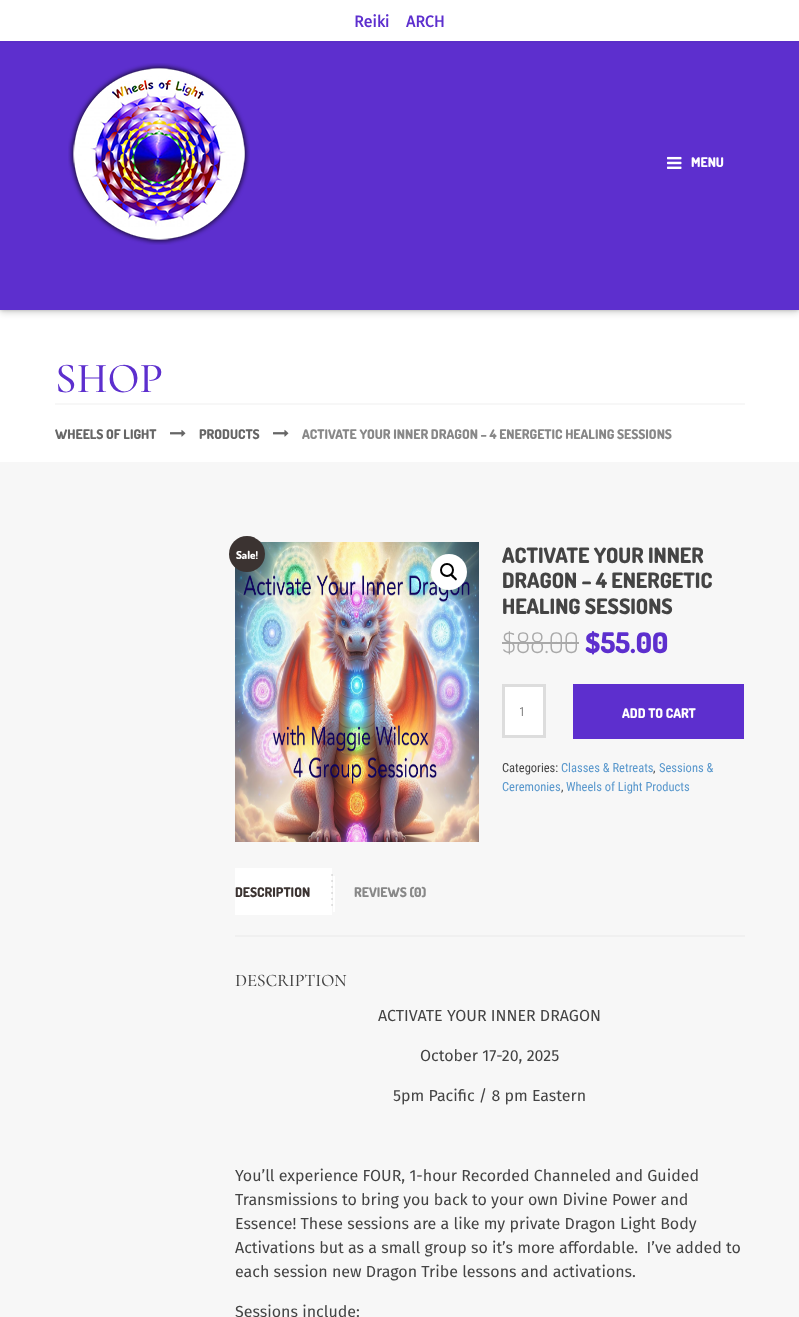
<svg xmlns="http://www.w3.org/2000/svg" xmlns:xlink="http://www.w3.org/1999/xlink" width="799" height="1317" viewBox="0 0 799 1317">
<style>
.cls-1{font:bold 16px Fira Sans;fill:#5d2fce}
.cls-2{font:800 13.3px Dosis;fill:#ffffff}
.cls-3{font:500 43px Cormorant Upright;fill:#5d2fce}
.cls-4{font:800 13.3px Dosis;fill:#666666}
.cls-5{font:800 13.3px Dosis;fill:#888888}
.cls-6{font:800 21.25px Dosis;fill:#444444}
.cls-7{font:300 28.5px Dosis;fill:#a9a9a9}
.cls-8{font:800 28.5px Dosis;fill:#5d2fce}
.cls-9{font:12.5px Roboto Condensed;fill:#888888}
.cls-10{font:12.5px Roboto Condensed;fill:#444444}
.cls-11{font:12.5px Roboto Condensed;fill:#5897cc}
.cls-12{font:800 11px Dosis;fill:#ffffff}
.cls-13{font:800 13.3px Dosis;fill:#3b3331}
.cls-14{font:500 17.75px Cormorant Upright;fill:#444444}
.cls-15{font:16px Fira Sans;fill:#444444}
</style>
<rect width="100%" height="100%" fill="#f7f7f7"/>
<rect fill="#dedede" x="331" y="904" width="2" height="2"/>
<rect fill="#dedede" x="331" y="898" width="2" height="2"/>
<rect fill="#dedede" x="331" y="892" width="2" height="2"/>
<rect fill="#dedede" x="331" y="886" width="2" height="2"/>
<rect fill="#dedede" x="331" y="880" width="2" height="2"/>
<rect fill="#dedede" x="331" y="874" width="2" height="2"/>
<rect fill="#ffffff" x="0" y="310" width="799" height="152"/>
<rect fill="#000000" fill-opacity="0.15" filter="blur(3.5px)" x="0" y="44" width="799" height="269"/>
<rect fill="#000000" fill-opacity="0.35" filter="blur(2px)" x="0" y="40" width="799" height="269"/>
<rect fill="#ffffff" x="0" y="0" width="799" height="41"/>
<rect fill="#5d2fce" x="0" y="43" width="799" height="267"/>
<rect fill="#5a2ec8" x="0" y="41" width="799" height="2"/>
<image xlink:href="image0.png" x="68" y="63" width="182" height="182"/>
<image xlink:href="image1.png" x="667" y="156" width="15" height="13"/>
<rect fill="#f7f7f7" x="55" y="403" width="690" height="2"/>
<image xlink:href="image2.png" x="170" y="429" width="16" height="8"/>
<image xlink:href="image2.png" x="273" y="429" width="16" height="8"/>
<image xlink:href="image3.png" x="235" y="542" width="244" height="300"/>
<circle fill="#ffffff" cx="449" cy="572" r="18"/>
<circle fill="none" stroke="#000000" stroke-width="2" cx="447" cy="570" r="6"/>
<path fill="#000000" d="M451 574.5C452 573 454 576 454.5 576.5C455 577 458 579 456.5 580C455.5 581.5 454 578.5 453 578C452.5 577.5 450 575.5 451 574.5Z"/>
<rect fill="#a9a9a9" x="502" y="642" width="77" height="2"/>
<rect fill="#ffffff" stroke="#dddddd" stroke-width="3" x="503.5" y="685.5" width="41" height="51"/>
<rect fill="#5d2fce" x="573" y="684" width="171" height="55"/>
<circle fill="#3b3331" cx="247" cy="554" r="18"/>
<rect fill="#ffffff" x="235" y="868" width="97" height="47"/>
<rect fill="#e6e6e6" x="331" y="904" width="1" height="2"/>
<rect fill="#e6e6e6" x="331" y="898" width="1" height="2"/>
<rect fill="#e6e6e6" x="331" y="892" width="1" height="2"/>
<rect fill="#e6e6e6" x="331" y="886" width="1" height="2"/>
<rect fill="#e6e6e6" x="331" y="880" width="1" height="2"/>
<rect fill="#e6e6e6" x="331" y="874" width="1" height="2"/>
<rect fill="#ffffff" x="333" y="876" width="2" height="36"/>
<rect fill="#f0f0f0" x="235" y="935" width="510" height="2"/>
<text class="cls-1" x="354" y="27">Reiki</text>
<text class="cls-1" x="406" y="27">ARCH</text>
<text class="cls-2" x="691" y="167">MENU</text>
<text class="cls-3" x="55" y="392">SHOP</text>
<text class="cls-4" x="55" y="439">WHEELS OF LIGHT</text>
<text class="cls-4" x="199" y="439">PRODUCTS</text>
<text class="cls-5" x="302" y="439">ACTIVATE YOUR INNER DRAGON – 4 ENERGETIC HEALING SESSIONS</text>
<text class="cls-6"><tspan x="502" y="563">ACTIVATE YOUR INNER</tspan><tspan x="502" y="588">DRAGON – 4 ENERGETIC</tspan><tspan x="502" y="614">HEALING SESSIONS</tspan></text>
<text class="cls-7" x="502" y="653">$88.00</text>
<text class="cls-8" x="585" y="653">$55.00</text>
<text class="cls-9" x="519" y="716">1</text>
<text class="cls-2" x="622" y="718">ADD TO CART</text>
<text class="cls-10" x="502" y="772">Categories:</text>
<text class="cls-11" x="561" y="772">Classes &amp; Retreats</text>
<text class="cls-10" x="653" y="772">,</text>
<text class="cls-11" x="659" y="772">Sessions &amp;</text>
<text class="cls-11" x="502" y="791">Ceremonies</text>
<text class="cls-10" x="561" y="791">,</text>
<text class="cls-11" x="566" y="791">Wheels of Light Products</text>
<text class="cls-12" x="236" y="559">Sale!</text>
<text class="cls-13" x="235" y="897">DESCRIPTION</text>
<text class="cls-5" x="354" y="897">REVIEWS (0)</text>
<text class="cls-14" x="235" y="986">DESCRIPTION</text>
<text class="cls-15" x="378" y="1021">ACTIVATE YOUR INNER DRAGON</text>
<text class="cls-15" x="420" y="1061">October 17-20, 2025</text>
<text class="cls-15" x="393" y="1101">5pm Pacific / 8 pm Eastern</text>
<text class="cls-15" xml:space="preserve"><tspan x="235" y="1181">You’ll experience FOUR, 1-hour Recorded Channeled and Guided</tspan><tspan x="235" y="1205">Transmissions to bring you back to your own Divine Power and</tspan><tspan x="235" y="1229">Essence! These sessions are a like my private Dragon Light Body</tspan><tspan x="235" y="1253">Activations but as a small group so it’s more affordable.  I’ve added to</tspan><tspan x="235" y="1277">each session new Dragon Tribe lessons and activations.</tspan></text>
<text class="cls-15" x="235" y="1317">Sessions include:</text>
</svg>
